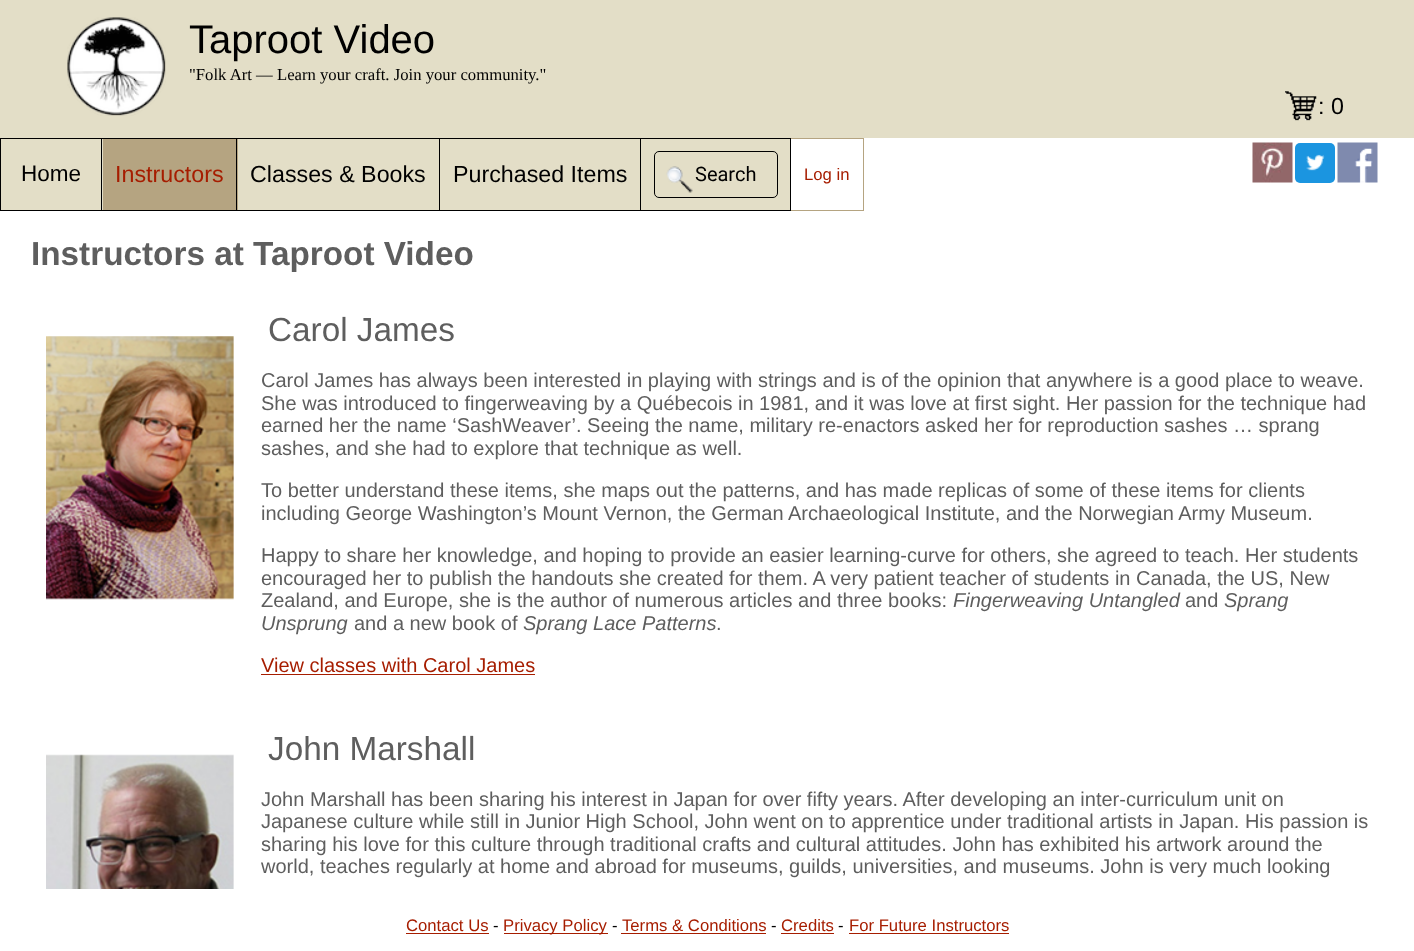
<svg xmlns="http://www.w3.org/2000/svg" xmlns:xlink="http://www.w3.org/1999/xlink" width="1414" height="951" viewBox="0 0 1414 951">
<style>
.cls-1{font:40px Liberation Sans;fill:#000000}
.cls-2{font:16.7px Liberation Serif;fill:#000000}
.cls-3{font:23.25px Liberation Sans;fill:#000000}
.cls-4{font:22.5px Liberation Sans;fill:#000000}
.cls-5{font:23.25px Liberation Sans;fill:#a61d00}
.cls-6{font:20px Roboto;fill:#000000}
.cls-7{font:16.7px Liberation Sans;fill:#a61d00}
.cls-8{font:bold 33.3px Liberation Sans;fill:#5e5e5e}
.cls-9{font:33.3px Liberation Sans;fill:#5e5e5e}
.cls-10{font:20px Liberation Sans;fill:#5e5e5e}
.cls-11{font:italic 20px Liberation Sans;fill:#5e5e5e}
.cls-12{font:20px Liberation Sans;fill:#a61d00}
.cls-13{font:16.7px Liberation Sans;fill:#000000}
</style>
<rect width="100%" height="100%" fill="#ffffff"/>
<rect fill="#e3dec7" x="0" y="0" width="1414" height="138"/>
<image xlink:href="image0.png" x="67" y="17" width="99" height="99"/>
<image xlink:href="image1.png" x="1285" y="91" width="32" height="30"/>
<rect fill="#e3dec7" x="1" y="139" width="789" height="71"/>
<rect fill="#b5a481" x="790" y="138" width="74" height="1"/>
<rect fill="#000000" x="640" y="138" width="151" height="1"/>
<rect fill="#b5a481" x="863" y="138" width="1" height="73"/>
<rect fill="#b5a481" x="790" y="210" width="74" height="1"/>
<rect fill="#000000" x="790" y="138" width="1" height="73"/>
<rect fill="#000000" x="640" y="210" width="151" height="1"/>
<rect fill="#000000" x="640" y="138" width="1" height="73"/>
<rect fill="#000000" x="439" y="138" width="202" height="1"/>
<rect fill="#000000" x="439" y="210" width="202" height="1"/>
<rect fill="#000000" x="439" y="138" width="1" height="73"/>
<rect fill="#000000" x="236" y="138" width="204" height="1"/>
<rect fill="#b5a481" x="103" y="139" width="135" height="71"/>
<rect fill="#000000" x="236" y="210" width="204" height="1"/>
<rect fill="#000000" x="236" y="138" width="1" height="73"/>
<rect fill="#000000" x="101" y="138" width="137" height="1"/>
<rect fill="#000000" x="101" y="210" width="137" height="1"/>
<rect fill="#000000" x="101" y="138" width="1" height="73"/>
<rect fill="#000000" x="0" y="138" width="103" height="1"/>
<rect fill="#000000" x="0" y="210" width="103" height="1"/>
<rect fill="#000000" x="0" y="138" width="1" height="73"/>
<rect fill="none" stroke="#000000" x="654.5" y="151.5" width="123" height="46" rx="4.5"/>
<image xlink:href="image2.png" x="666" y="166" width="27" height="27"/>
<image xlink:href="image3.png" x="1252" y="142" width="41" height="41"/>
<rect fill="#1b95e0" x="1295" y="143" width="40" height="40" rx="5"/>
<image xlink:href="image4.png" x="1306" y="154" width="19" height="17"/>
<image xlink:href="image5.png" x="1337" y="142" width="41" height="41"/>
<image xlink:href="image6.png" x="46" y="336" width="188" height="264"/>
<rect fill="#a61d00" x="261" y="674" width="274" height="1"/>
<image xlink:href="image7.png" x="46" y="754" width="188" height="135"/>
<rect fill="#a61d00" x="406" y="933" width="83" height="1"/>
<rect fill="#a61d00" x="504" y="933" width="104" height="1"/>
<rect fill="#a61d00" x="621" y="933" width="145" height="1"/>
<rect fill="#a61d00" x="781" y="933" width="53" height="1"/>
<rect fill="#a61d00" x="849" y="933" width="160" height="1"/>
<text class="cls-1" x="189" y="53">Taproot Video</text>
<text class="cls-2" x="189" y="80">"Folk Art — Learn your craft. Join your community."</text>
<text class="cls-3" x="1318" y="114">: 0</text>
<text class="cls-4" x="21" y="181">Home</text>
<text class="cls-5" x="115" y="182">Instructors</text>
<text class="cls-3" x="250" y="182">Classes &amp; Books</text>
<text class="cls-3" x="453" y="182">Purchased Items</text>
<text class="cls-6" x="695" y="181">Search</text>
<text class="cls-7" x="804" y="180">Log in</text>
<text class="cls-8" x="31" y="265">Instructors at Taproot Video</text>
<text class="cls-9" x="268" y="341">Carol James</text>
<text class="cls-10"><tspan x="261" y="387">Carol James has always been interested in playing with strings and is of the opinion that anywhere is a good place to weave.</tspan><tspan x="261" y="410">She was introduced to fingerweaving by a Québecois in 1981, and it was love at first sight. Her passion for the technique had</tspan><tspan x="261" y="432">earned her the name ‘SashWeaver’. Seeing the name, military re-enactors asked her for reproduction sashes … sprang</tspan><tspan x="261" y="455">sashes, and she had to explore that technique as well.</tspan></text>
<text class="cls-10"><tspan x="261" y="497">To better understand these items, she maps out the patterns, and has made replicas of some of these items for clients</tspan><tspan x="261" y="520">including George Washington’s Mount Vernon, the German Archaeological Institute, and the Norwegian Army Museum.</tspan></text>
<text class="cls-10"><tspan x="261" y="562">Happy to share her knowledge, and hoping to provide an easier learning-curve for others, she agreed to teach. Her students</tspan><tspan x="261" y="585">encouraged her to publish the handouts she created for them. A very patient teacher of students in Canada, the US, New</tspan><tspan x="261" y="607">Zealand, and Europe, she is the author of numerous articles and three books:</tspan></text>
<text class="cls-11" x="953" y="607">Fingerweaving Untangled</text>
<text class="cls-10" x="1185" y="607">and</text>
<text class="cls-11" x="1224" y="607">Sprang</text>
<text class="cls-11" x="261" y="630">Unsprung</text>
<text class="cls-10" x="354" y="630">and a new book of</text>
<text class="cls-11" x="523" y="630">Sprang Lace Patterns</text>
<text class="cls-10" x="716" y="630">.</text>
<text class="cls-12" x="261" y="672">View classes with Carol James</text>
<text class="cls-9" x="268" y="760">John Marshall</text>
<text class="cls-10"><tspan x="261" y="806">John Marshall has been sharing his interest in Japan for over fifty years. After developing an inter-curriculum unit on</tspan><tspan x="261" y="828">Japanese culture while still in Junior High School, John went on to apprentice under traditional artists in Japan. His passion is</tspan><tspan x="261" y="851">sharing his love for this culture through traditional crafts and cultural attitudes. John has exhibited his artwork around the</tspan><tspan x="261" y="873">world, teaches regularly at home and abroad for museums, guilds, universities, and museums. John is very much looking</tspan></text>
<text class="cls-7" x="406" y="931">Contact Us</text>
<text class="cls-13" x="493" y="931">-</text>
<text class="cls-7" x="503" y="931">Privacy Policy</text>
<text class="cls-13" x="612" y="931">-</text>
<text class="cls-7" x="622" y="931">Terms &amp; Conditions</text>
<text class="cls-13" x="771" y="931">-</text>
<text class="cls-7" x="781" y="931">Credits</text>
<text class="cls-13" x="838" y="931">-</text>
<text class="cls-7" x="849" y="931">For Future Instructors</text>
</svg>
